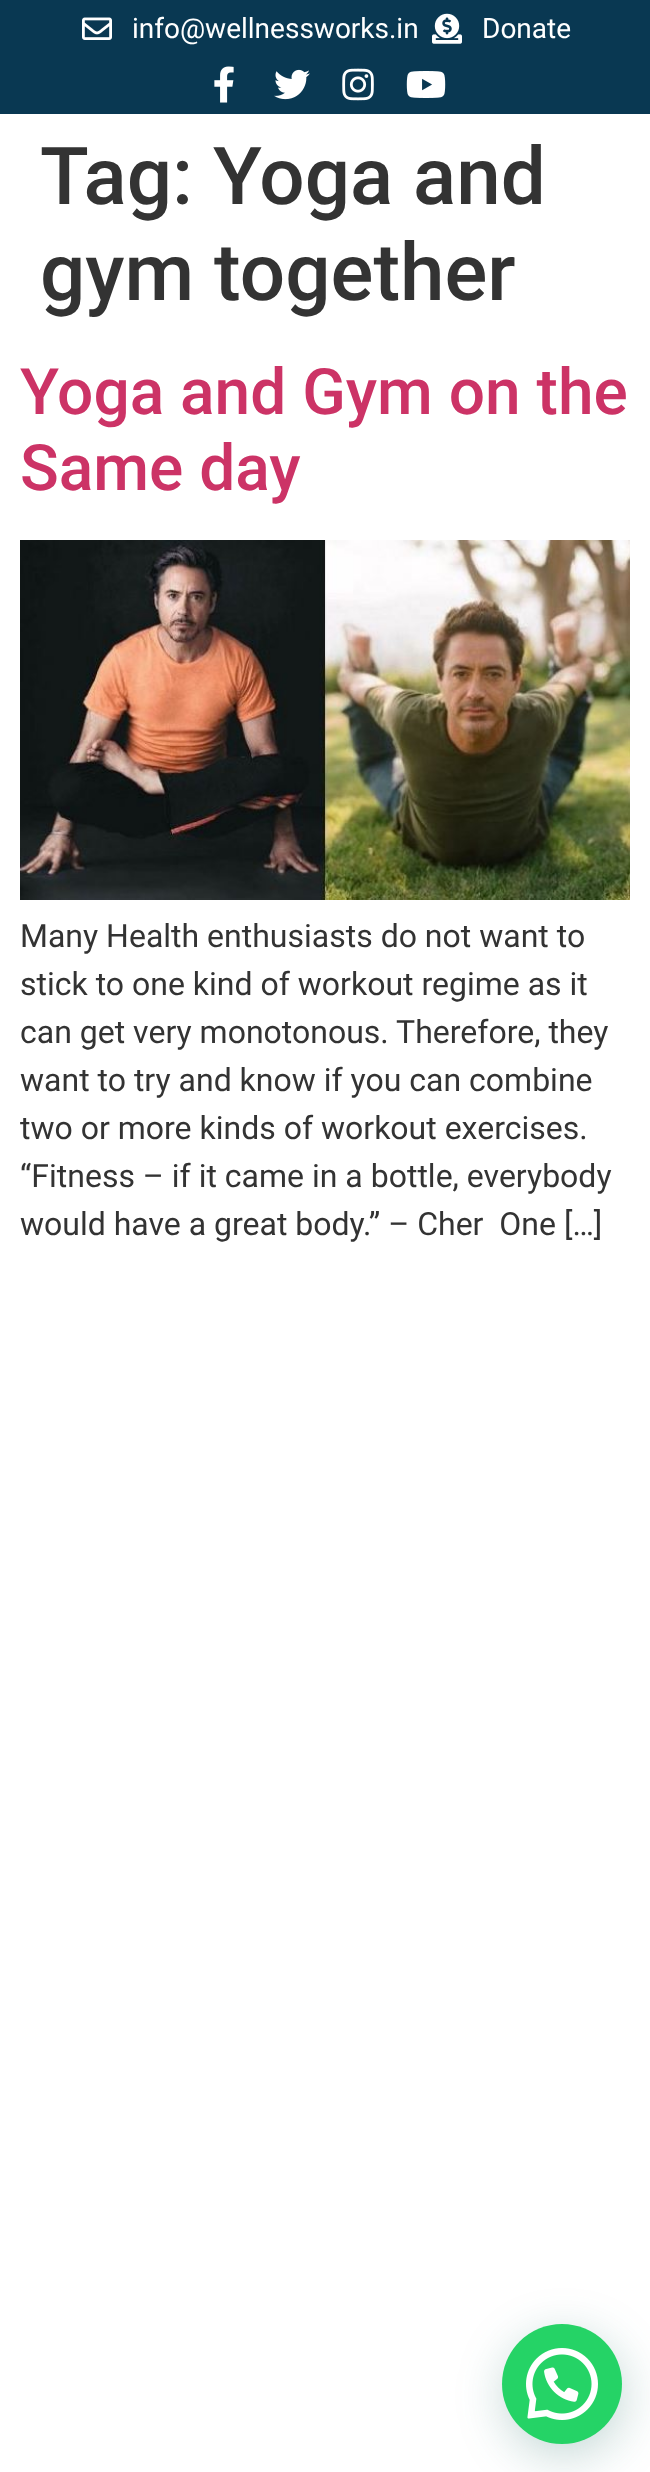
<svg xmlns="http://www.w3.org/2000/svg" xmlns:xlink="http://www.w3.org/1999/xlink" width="650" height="2472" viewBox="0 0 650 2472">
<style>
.cls-1{font:28px Roboto;fill:#ffffff}
.cls-2{font:500 80px Roboto;fill:#333333}
.cls-3{font:500 64px Roboto;fill:#cc3366}
.cls-4{font:32px Roboto;fill:#333333}
</style>
<rect width="100%" height="100%" fill="#ffffff"/>
<rect fill="#093852" x="0" y="0" width="650" height="114"/>
<image xlink:href="image0.png" x="82" y="17" width="30" height="23"/>
<image xlink:href="image1.png" x="432" y="13" width="30" height="31"/>
<image xlink:href="image2.png" x="214" y="66" width="20" height="37"/>
<image xlink:href="image3.png" x="274" y="69" width="36" height="31"/>
<image xlink:href="image4.png" x="342" y="68" width="32" height="33"/>
<image xlink:href="image5.png" x="406" y="71" width="40" height="27"/>
<image xlink:href="image6.png" x="20" y="540" width="610" height="360"/>
<rect fill="#075e54" fill-opacity="0.24" filter="blur(24px)" x="504" y="2336" width="120" height="120" rx="60"/>
<circle fill="#25d366" cx="562" cy="2384" r="60"/>
<image xlink:href="image7.png" x="526" y="2348" width="72" height="72"/>
<text class="cls-1" x="132" y="38">info@wellnessworks.in</text>
<text class="cls-1" x="482" y="38">Donate</text>
<text class="cls-2"><tspan x="40" y="204">Tag: Yoga and</tspan><tspan x="40" y="300">gym together</tspan></text>
<text class="cls-3"><tspan x="20" y="414">Yoga and Gym on the</tspan><tspan x="20" y="490">Same day</tspan></text>
<text class="cls-4" xml:space="preserve"><tspan x="20" y="947">Many Health enthusiasts do not want to</tspan><tspan x="20" y="995">stick to one kind of workout regime as it</tspan><tspan x="20" y="1043">can get very monotonous. Therefore, they</tspan><tspan x="20" y="1091">want to try and know if you can combine</tspan><tspan x="20" y="1139">two or more kinds of workout exercises.</tspan><tspan x="20" y="1187">“Fitness – if it came in a bottle, everybody</tspan><tspan x="20" y="1235">would have a great body.” – Cher  One […]</tspan></text>
</svg>
